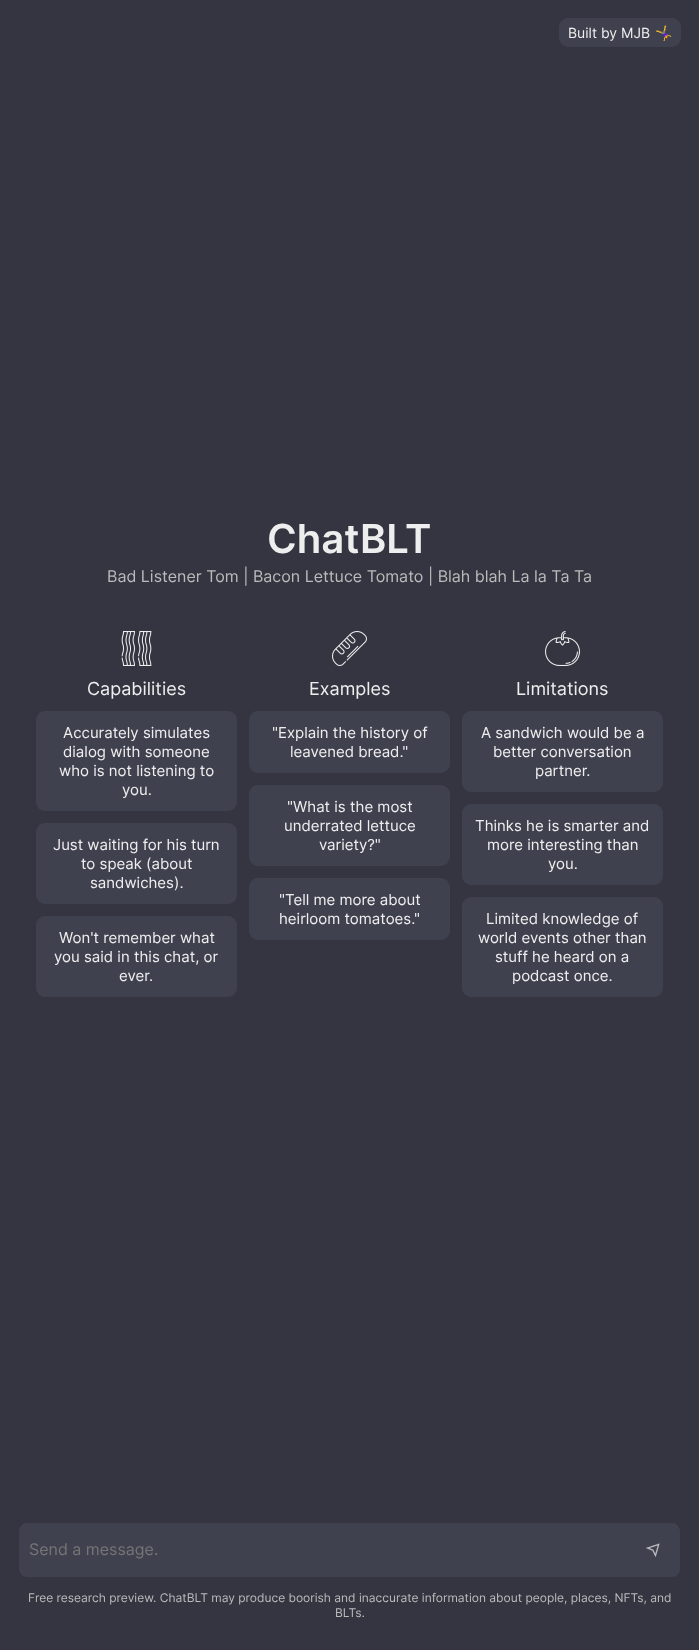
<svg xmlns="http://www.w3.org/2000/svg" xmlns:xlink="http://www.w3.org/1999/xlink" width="699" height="1650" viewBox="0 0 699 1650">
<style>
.cls-1{font:14px Inter;fill:#eeeeee}
.cls-2{font:14px Noto Color Emoji;fill:#eeeeee}
.cls-3{font:600 40px Inter;fill:#eeeeee}
.cls-4{font:16px Inter;fill:#bbbbbb}
.cls-5{font:18px Inter;fill:#eeeeee}
.cls-6{font:15px Inter;fill:#eeeeee}
.cls-7{font:16px Inter;fill:#757575}
.cls-8{font:12px Inter;fill:#bbbbbb}
</style>
<rect width="100%" height="100%" fill="#343541"/>
<rect fill="#40414f" stroke="#40414f" x="559.5" y="18.5" width="121" height="28" rx="8.5"/>
<image xlink:href="image0.png" x="121" y="631" width="31" height="35"/>
<rect fill="#40414f" x="36" y="711" width="201" height="100" rx="9"/>
<rect fill="#40414f" x="36" y="823" width="201" height="81" rx="9"/>
<rect fill="#40414f" x="36" y="916" width="201" height="81" rx="9"/>
<image xlink:href="image1.png" x="332" y="631" width="35" height="35"/>
<rect fill="#40414f" x="249" y="711" width="201" height="62" rx="9"/>
<rect fill="#40414f" x="249" y="785" width="201" height="81" rx="9"/>
<rect fill="#40414f" x="249" y="878" width="201" height="62" rx="9"/>
<image xlink:href="image2.png" x="545" y="631" width="35" height="35"/>
<rect fill="#40414f" x="462" y="711" width="201" height="81" rx="9"/>
<rect fill="#40414f" x="462" y="804" width="201" height="81" rx="9"/>
<rect fill="#40414f" x="462" y="897" width="201" height="100" rx="9"/>
<rect fill="#40414f" stroke="#343541" x="18.5" y="1522.5" width="662" height="55" rx="8.5"/>
<image xlink:href="image3.png" x="646" y="1543" width="14" height="14"/>
<text class="cls-1" x="568" y="38">Built by MJB</text>
<text class="cls-2" x="655" y="38">🤸‍♀️</text>
<text class="cls-3" x="267" y="553">ChatBLT</text>
<text class="cls-4" x="107" y="582">Bad Listener Tom | Bacon Lettuce Tomato | Blah blah La la Ta Ta</text>
<text class="cls-5" x="87" y="695">Capabilities</text>
<text class="cls-6"><tspan x="63" y="738">Accurately simulates</tspan><tspan x="63" y="757">dialog with someone</tspan></text>
<text class="cls-6" x="59" y="776">who is not listening to</text>
<text class="cls-6" x="122" y="795">you.</text>
<text class="cls-6" x="53" y="850">Just waiting for his turn</text>
<text class="cls-6" x="81" y="869">to speak (about</text>
<text class="cls-6" x="90" y="888">sandwiches).</text>
<text class="cls-6" x="59" y="943">Won't remember what</text>
<text class="cls-6" x="54" y="962">you said in this chat, or</text>
<text class="cls-6" x="119" y="981">ever.</text>
<text class="cls-5" x="309" y="695">Examples</text>
<text class="cls-6" x="272" y="738">"Explain the history of</text>
<text class="cls-6" x="290" y="757">leavened bread."</text>
<text class="cls-6" x="287" y="812">"What is the most</text>
<text class="cls-6" x="284" y="831">underrated lettuce</text>
<text class="cls-6" x="319" y="850">variety?"</text>
<text class="cls-6"><tspan x="279" y="905">"Tell me more about</tspan><tspan x="279" y="924">heirloom tomatoes."</tspan></text>
<text class="cls-5" x="516" y="695">Limitations</text>
<text class="cls-6" x="481" y="738">A sandwich would be a</text>
<text class="cls-6" x="493" y="757">better conversation</text>
<text class="cls-6" x="535" y="776">partner.</text>
<text class="cls-6" x="475" y="831">Thinks he is smarter and</text>
<text class="cls-6" x="487" y="850">more interesting than</text>
<text class="cls-6" x="548" y="869">you.</text>
<text class="cls-6" x="486" y="924">Limited knowledge of</text>
<text class="cls-6" x="478" y="943">world events other than</text>
<text class="cls-6" x="495" y="962">stuff he heard on a</text>
<text class="cls-6" x="512" y="981">podcast once.</text>
<text class="cls-7" x="29" y="1555">Send a message.</text>
<text class="cls-8" x="28" y="1602">Free research preview. ChatBLT may produce boorish and inaccurate information about people, places, NFTs, and</text>
<text class="cls-8" x="335" y="1617">BLTs.</text>
</svg>
